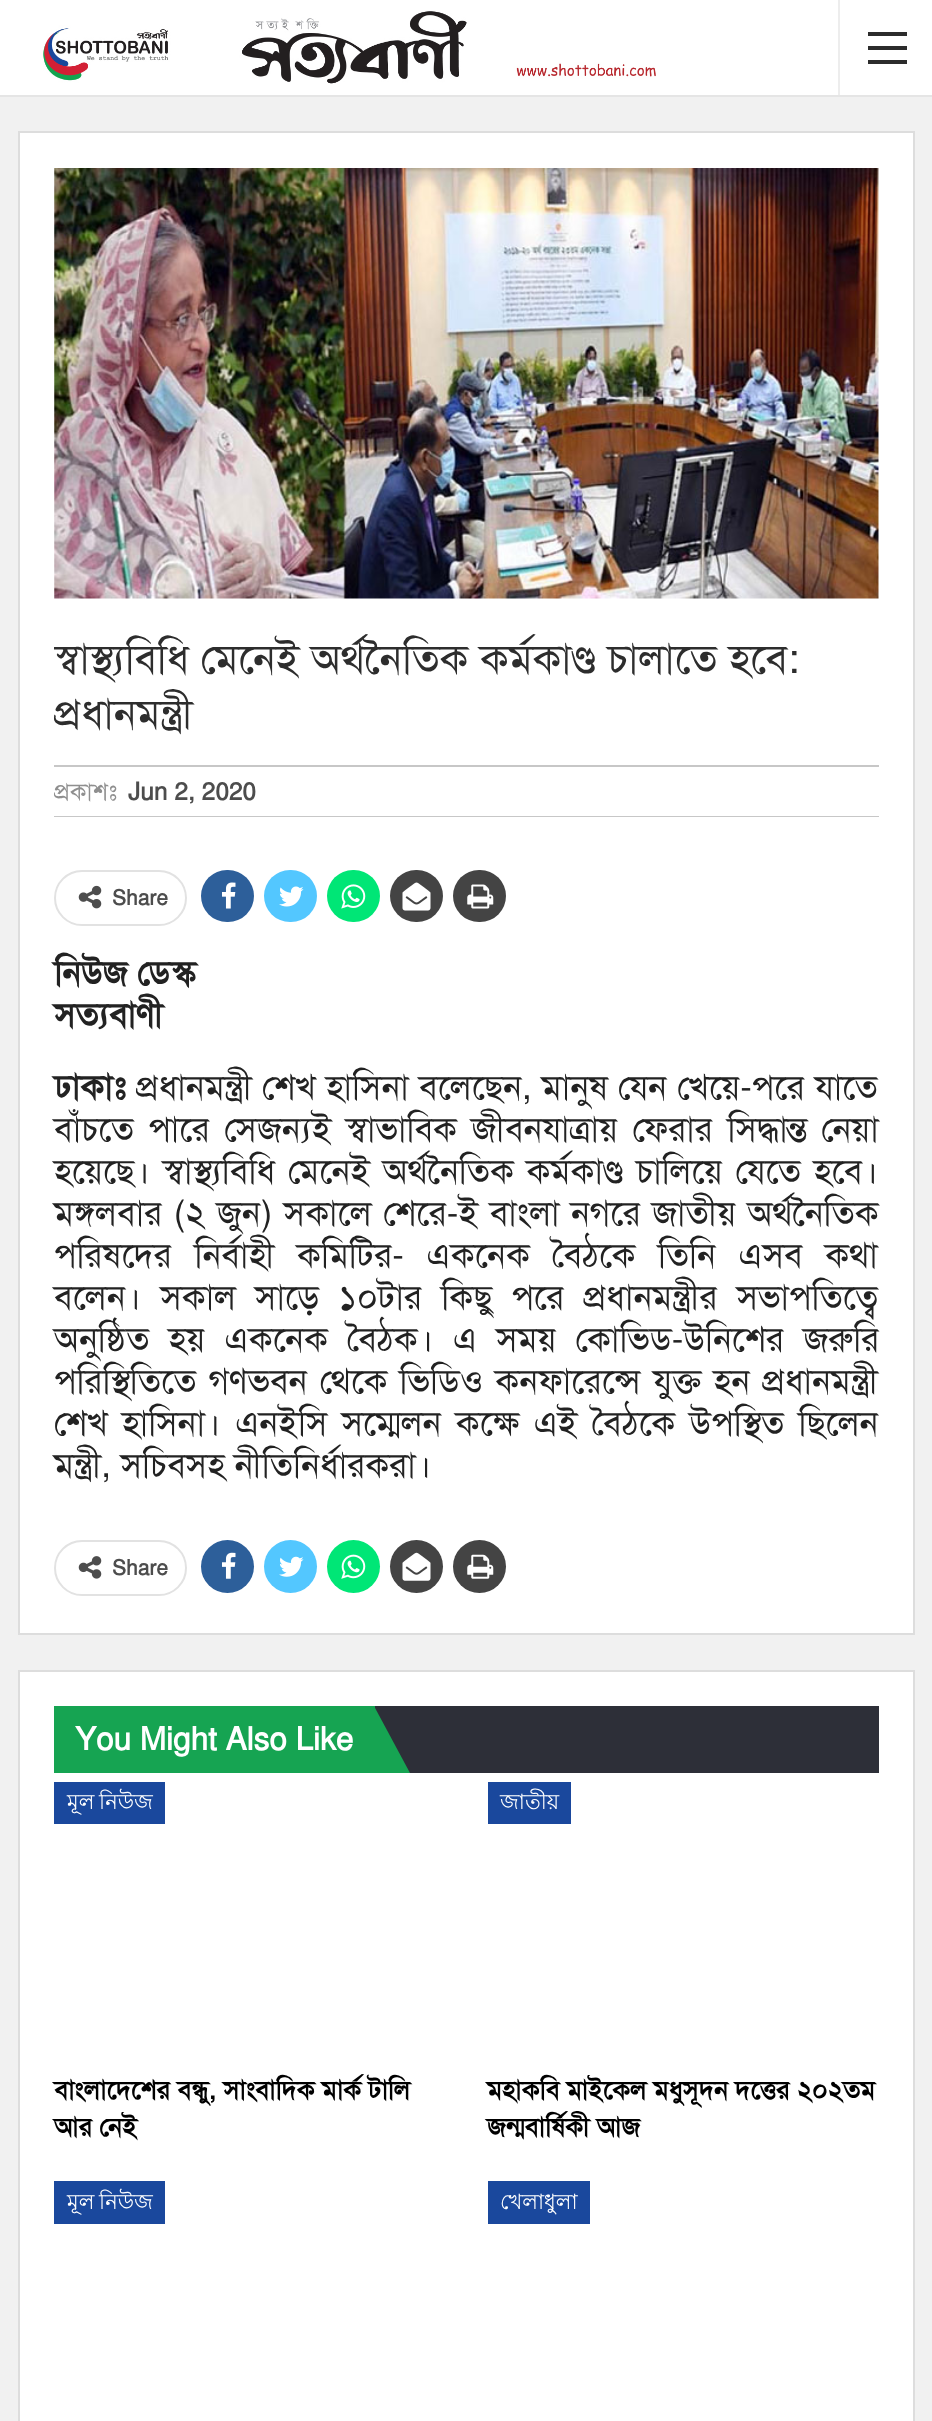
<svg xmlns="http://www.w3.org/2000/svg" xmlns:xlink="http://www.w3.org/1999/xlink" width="932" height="2421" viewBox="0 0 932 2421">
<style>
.cls-1{font:42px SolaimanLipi;fill:#2d2d2d}
.cls-2{font:24.5px SolaimanLipi;fill:#8f8f8f}
.cls-3{font:bold 24.5px SolaimanLipi;fill:#4d4d4d}
.cls-4{font:bold 21px SolaimanLipi;fill:#4d4d4d}
.cls-5{font:bold 35px SolaimanLipi;fill:#222222}
.cls-6{font:35px SolaimanLipi;fill:#222222}
.cls-7{font:bold 31.5px SolaimanLipi;fill:#ffffff}
.cls-8{font:21px Lohit Bengali;fill:#ffffff}
.cls-9{font:bold 26.25px SolaimanLipi;fill:#000000}
</style>
<defs>
<clipPath id="clip1"><rect x="54" y="634" width="825" height="183"/></clipPath>
</defs>
<rect width="100%" height="100%" fill="#f1f1f1"/>
<rect fill="#ffffff" x="0" y="0" width="932" height="95"/>
<rect fill="#e5e5e5" x="0" y="95" width="932" height="2"/>
<image xlink:href="image0.png" x="43" y="11" width="613" height="73"/>
<rect fill="#ededed" x="838" y="0" width="2" height="95"/>
<rect fill="#2c2c2c" x="868" y="46" width="39" height="4"/>
<rect fill="#2c2c2c" x="868" y="32" width="39" height="4"/>
<rect fill="#2c2c2c" x="868" y="60" width="39" height="4"/>
<rect fill="#ffffff" stroke="#dddddd" stroke-width="2" x="19" y="132" width="895" height="1502"/>
<image xlink:href="image1.png" x="54" y="168" width="825" height="431"/>
<rect fill="#c7c7c7" x="54" y="765" width="825" height="2"/>
<rect fill="#c7c7c7" x="54" y="816" width="825" height="1"/>
<rect fill="none" stroke="#e2e2e2" stroke-width="2" x="55" y="871" width="131" height="54" rx="27"/>
<image xlink:href="image2.png" x="78" y="885" width="24" height="24"/>
<rect fill="#2d5f9a" x="201" y="870" width="53" height="52" rx="26"/>
<image xlink:href="image3.png" x="222" y="882" width="14" height="27"/>
<rect fill="#53c7ff" x="264" y="870" width="53" height="52" rx="26"/>
<image xlink:href="image4.png" x="279" y="886" width="25" height="21"/>
<rect fill="#00e676" x="327" y="870" width="53" height="52" rx="26"/>
<image xlink:href="image5.png" x="341" y="884" width="25" height="25"/>
<rect fill="#444444" x="390" y="870" width="53" height="52" rx="26"/>
<image xlink:href="image6.png" x="402" y="882" width="29" height="29"/>
<rect fill="#444444" x="453" y="870" width="53" height="52" rx="26"/>
<image xlink:href="image7.png" x="467" y="884" width="27" height="25"/>
<rect fill="none" stroke="#e2e2e2" stroke-width="2" x="55" y="1541" width="131" height="54" rx="27"/>
<image xlink:href="image8.png" x="78" y="1556" width="24" height="23"/>
<circle fill="#2d5f9a" cx="227.5" cy="1566.5" r="26.5"/>
<image xlink:href="image9.png" x="222" y="1552" width="14" height="27"/>
<circle fill="#53c7ff" cx="290.5" cy="1566.5" r="26.5"/>
<image xlink:href="image10.png" x="279" y="1556" width="25" height="21"/>
<circle fill="#00e676" cx="353.5" cy="1566.5" r="26.5"/>
<image xlink:href="image11.png" x="341" y="1554" width="25" height="25"/>
<circle fill="#444444" cx="416.5" cy="1566.5" r="26.5"/>
<image xlink:href="image12.png" x="402" y="1552" width="29" height="29"/>
<circle fill="#444444" cx="479.5" cy="1566.5" r="26.5"/>
<image xlink:href="image13.png" x="467" y="1554" width="27" height="25"/>
<rect fill="#ffffff" stroke="#dddddd" stroke-width="2" x="19" y="1671" width="895" height="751"/>
<rect fill="#2d2f38" x="375" y="1706" width="504" height="67"/>
<rect fill="#16a452" x="54" y="1706" width="321" height="67"/>
<path fill="#16a452" d="M410 1773H374V1706Z"/>
<rect fill="#1a489d" x="54" y="1782" width="111" height="42"/>
<rect fill="#1a489d" x="488" y="1782" width="83" height="42"/>
<rect fill="#1a489d" x="54" y="2181" width="111" height="43"/>
<rect fill="#1a489d" x="488" y="2181" width="102" height="43"/>
<g clip-path="url(#clip1)">
<text class="cls-1" x="54" y="673">স্বাস্থ্যবিধি মেনেই অর্থনৈতিক কর্মকাণ্ড চালাতে হবে:</text>
</g>
<text class="cls-1" x="54" y="728">প্রধানমন্ত্রী</text>
<text class="cls-2" x="54" y="800">প্রকাশঃ</text>
<text class="cls-3" x="128" y="800">Jun 2, 2020</text>
<text class="cls-4" x="112" y="905">Share</text>
<text class="cls-5"><tspan x="54" y="985">নিউজ ডেস্ক</tspan><tspan x="54" y="1027">সত্যবাণী</tspan></text>
<text class="cls-5" x="54" y="1099">ঢাকাঃ</text>
<text class="cls-6" x="136" y="1099" word-spacing="0.5">প্রধানমন্ত্রী শেখ হাসিনা বলেছেন, মানুষ যেন খেয়ে-পরে যাতে</text>
<text class="cls-6"><tspan x="54" y="1141" word-spacing="4.75">বাঁচতে পারে সেজন্যই স্বাভাবিক জীবনযাত্রায় ফেরার সিদ্ধান্ত নেয়া</tspan><tspan x="54" y="1183" word-spacing="3">হয়েছে। স্বাস্থ্যবিধি মেনেই অর্থনৈতিক কর্মকাণ্ড চালিয়ে যেতে হবে।</tspan><tspan x="54" y="1225" word-spacing="1.75">মঙ্গলবার (২ জুন) সকালে শেরে-ই বাংলা নগরে জাতীয় অর্থনৈতিক</tspan><tspan x="54" y="1267" word-spacing="12.75">পরিষদের নির্বাহী কমিটির- একনেক বৈঠকে তিনি এসব কথা</tspan><tspan x="54" y="1309" word-spacing="9.5">বলেন। সকাল সাড়ে ১০টার কিছু পরে প্রধানমন্ত্রীর সভাপতিত্বে</tspan><tspan x="54" y="1351" word-spacing="9.5">অনুষ্ঠিত হয় একনেক বৈঠক। এ সময় কোভিড-উনিশের জরুরি</tspan><tspan x="54" y="1393" word-spacing="2.5">পরিস্থিতিতে গণভবন থেকে ভিডিও কনফারেন্সে যুক্ত হন প্রধানমন্ত্রী</tspan><tspan x="54" y="1435" word-spacing="4.75">শেখ হাসিনা। এনইসি সম্মেলন কক্ষে এই বৈঠকে উপস্থিত ছিলেন</tspan><tspan x="54" y="1477">মন্ত্রী, সচিবসহ নীতিনির্ধারকরা।</tspan></text>
<text class="cls-4" x="112" y="1575">Share</text>
<text class="cls-7" x="75" y="1750">You Might Also Like</text>
<text class="cls-8" x="67" y="1809" word-spacing="-1">মূল নিউজ</text>
<text class="cls-9"><tspan x="54" y="2099">বাংলাদেশের বন্ধু, সাংবাদিক মার্ক টালি</tspan><tspan x="54" y="2136">আর নেই</tspan></text>
<text class="cls-8" x="500" y="1809">জাতীয়</text>
<text class="cls-9"><tspan x="487" y="2099">মহাকবি মাইকেল মধুসূদন দত্তের ২০২তম</tspan><tspan x="487" y="2136">জন্মবার্ষিকী আজ</tspan></text>
<text class="cls-8" x="67" y="2209" word-spacing="-1">মূল নিউজ</text>
<text class="cls-8" x="500" y="2209">খেলাধুলা</text>
</svg>
